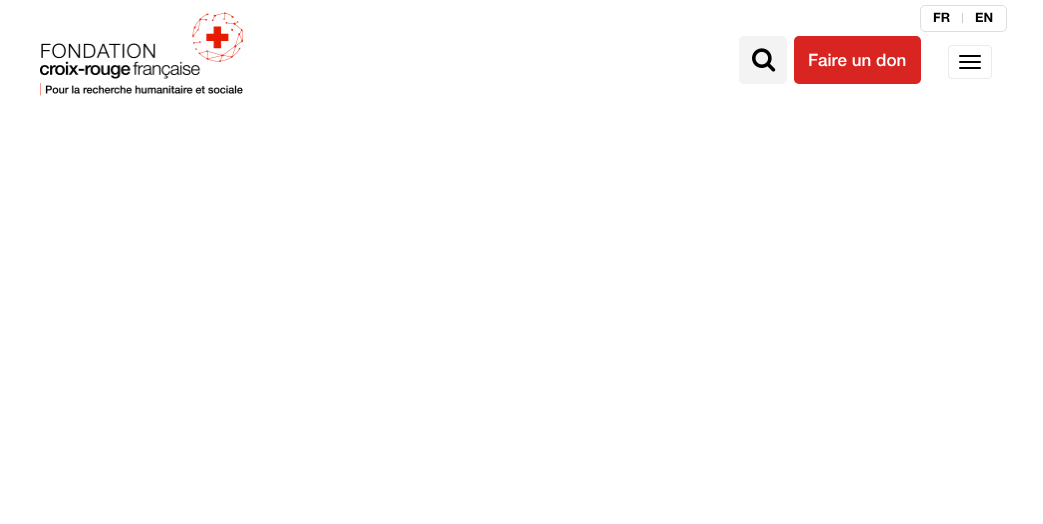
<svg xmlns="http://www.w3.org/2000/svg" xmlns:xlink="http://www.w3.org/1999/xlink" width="1043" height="524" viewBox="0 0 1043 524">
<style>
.cls-1{font:bold 13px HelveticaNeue;fill:#000000}
.cls-2{font:500 17px HelveticaNeue;fill:#ffffff}
</style>
<rect width="100%" height="100%" fill="#ffffff"/>
<image xlink:href="image0.png" x="40" y="12" width="204" height="84"/>
<rect fill="none" stroke="#dedede" x="920.5" y="5.5" width="86" height="26" rx="4.5"/>
<rect fill="#cccccc" x="962" y="13" width="1" height="10"/>
<rect fill="#f3f3f3" stroke="#f3f3f3" stroke-width="3" x="740.5" y="37.5" width="45" height="45" rx="3.5"/>
<image xlink:href="image1.png" x="752" y="48" width="24" height="24"/>
<rect fill="#d92521" x="794" y="36" width="127" height="48" rx="5"/>
<rect fill="none" stroke="#ebebeb" x="948.5" y="45.5" width="43" height="33" rx="3.5"/>
<rect fill="#000000" x="959" y="55" width="22" height="2" rx="1"/>
<rect fill="#000000" x="959" y="61" width="22" height="2" rx="1"/>
<rect fill="#000000" x="959" y="67" width="22" height="2" rx="1"/>
<text class="cls-1" x="933" y="22">FR</text>
<text class="cls-1" x="975" y="22">EN</text>
<text class="cls-2" x="808" y="66">Faire un don</text>
</svg>
